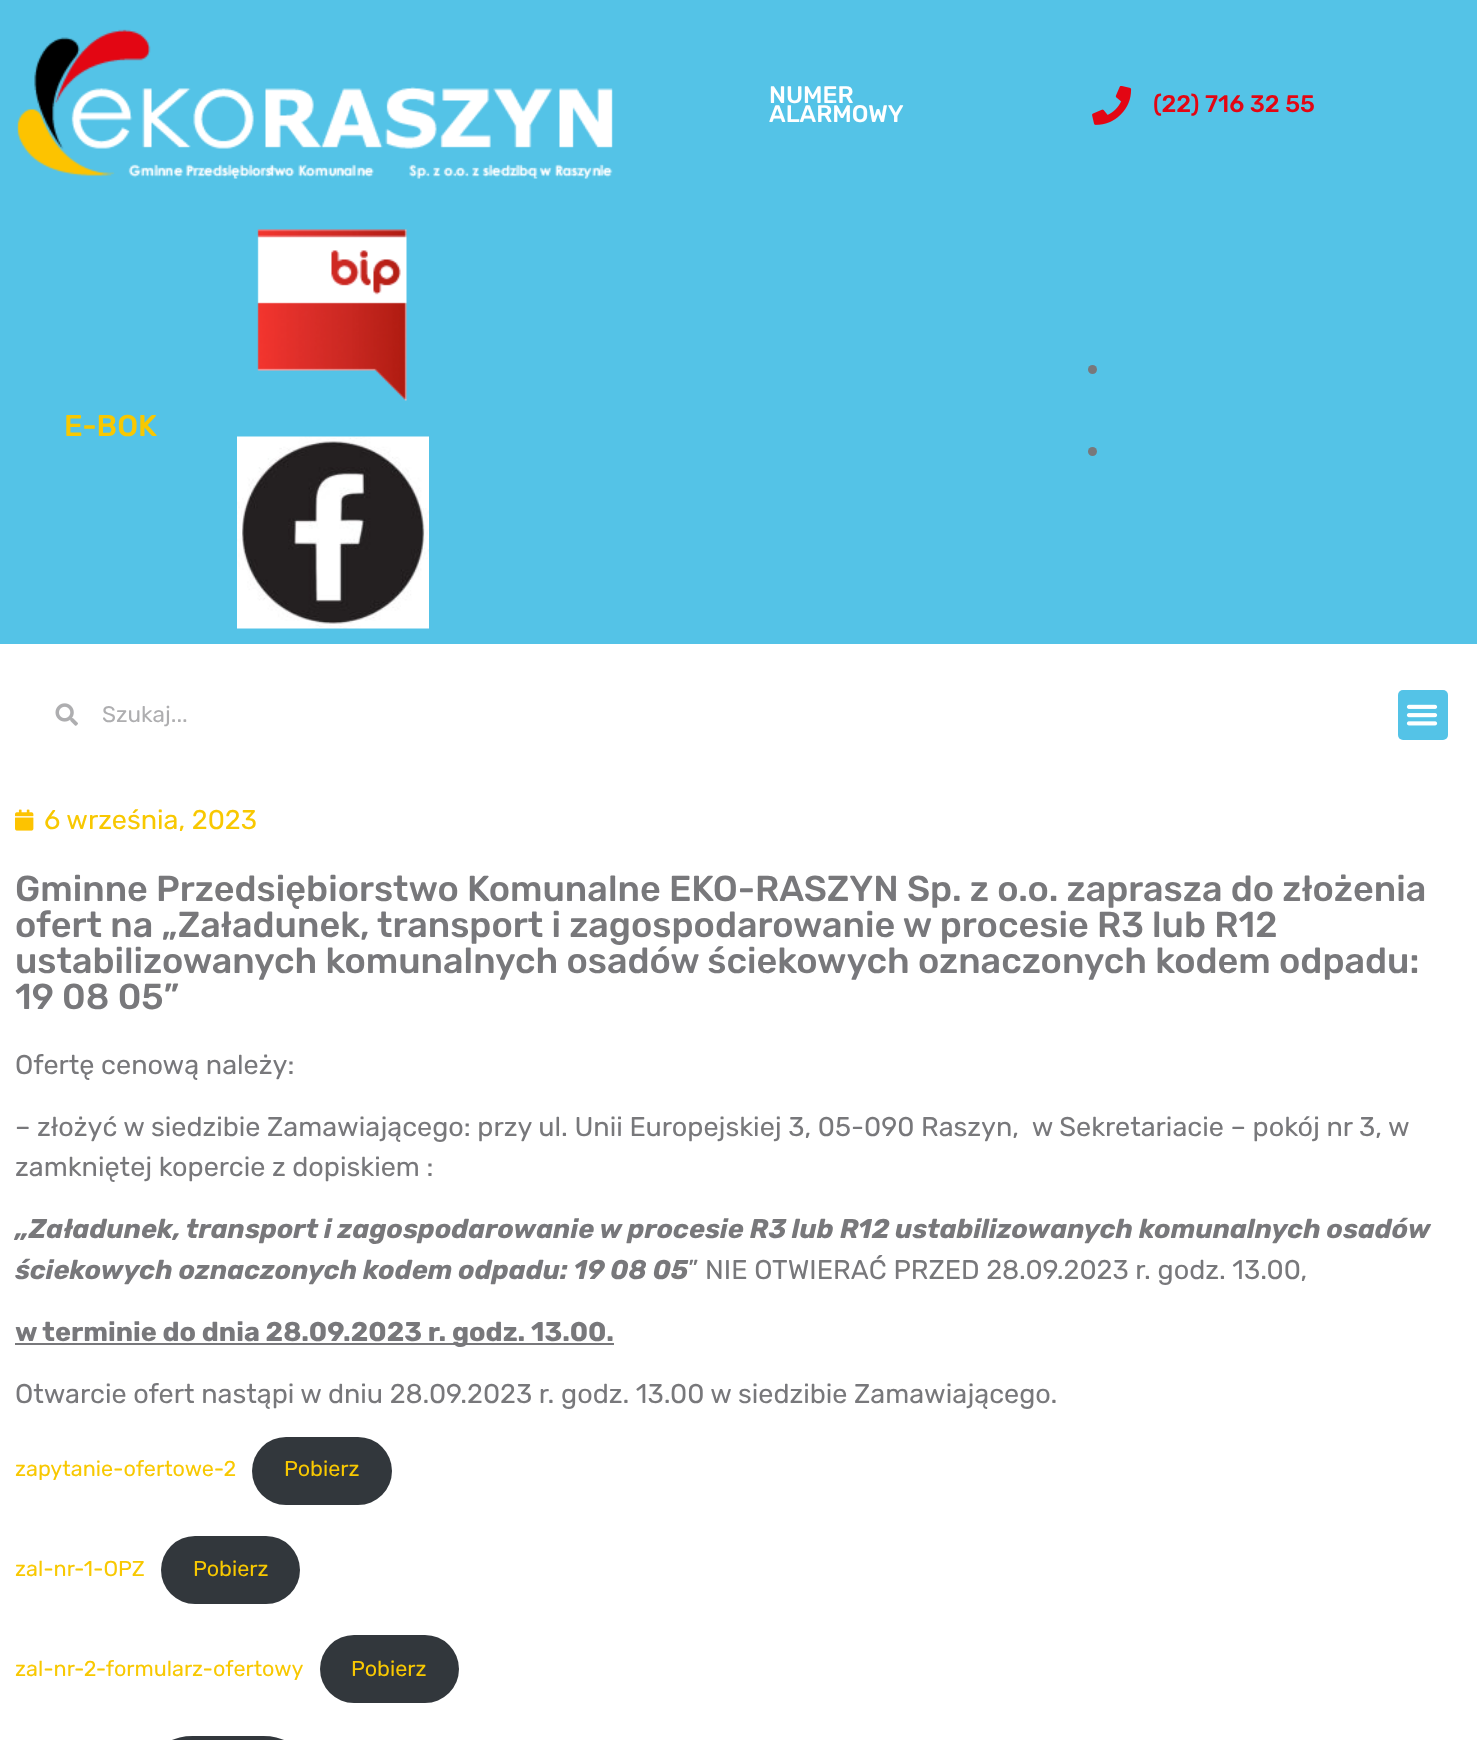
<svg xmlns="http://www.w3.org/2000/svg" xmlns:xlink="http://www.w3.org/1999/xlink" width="1477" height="1740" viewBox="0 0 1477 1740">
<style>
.cls-1{font:500 24px Rubik;fill:#ffffff}
.cls-2{font:500 24px Rubik;fill:#e30613}
.cls-3{font:500 30px Rubik;fill:#f8c801}
.cls-4{font:22.5px Rubik;fill:#aeaeb0}
.cls-5{font:27px Rubik;fill:#f8c801}
.cls-6{font:500 36px Rubik;fill:#78787b}
.cls-7{font:27px Rubik;fill:#78787b}
.cls-8{font:italic bold 27px Rubik;fill:#78787b}
.cls-9{font:bold 27px Rubik;fill:#78787b}
.cls-10{font:21.6px Rubik;fill:#f8c801}
</style>
<rect width="100%" height="100%" fill="#ffffff"/>
<rect fill="#54c3e7" x="0" y="0" width="1477" height="644"/>
<image xlink:href="image0.png" x="16" y="29" width="597" height="150"/>
<image xlink:href="image1.png" x="1092" y="86" width="40" height="39"/>
<image xlink:href="image2.png" x="257" y="229" width="150" height="172"/>
<image xlink:href="image3.png" x="237" y="436" width="192" height="193"/>
<circle fill="#78787b" cx="1092.5" cy="369.5" r="4.5"/>
<circle fill="#78787b" cx="1092.5" cy="451.5" r="4.5"/>
<image xlink:href="image4.png" x="55" y="703" width="23" height="23"/>
<rect fill="#54c3e7" x="1398" y="690" width="50" height="50" rx="5"/>
<image xlink:href="image5.png" x="1406" y="704" width="32" height="22"/>
<image xlink:href="image6.png" x="15" y="809" width="19" height="22"/>
<rect fill="#78787b" x="15" y="1343" width="599" height="2"/>
<rect fill="#32373c" x="252" y="1437" width="140" height="68" rx="34"/>
<rect fill="#32373c" x="161" y="1536" width="139" height="68" rx="34"/>
<rect fill="#32373c" x="320" y="1635" width="139" height="68" rx="34"/>
<rect fill="#32373c" x="159" y="1736" width="138" height="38" rx="33.5"/>
<text class="cls-1"><tspan x="769" y="103">NUMER</tspan><tspan x="769" y="122">ALARMOWY</tspan></text>
<text class="cls-2" x="1153" y="112">(22) 716 32 55</text>
<text class="cls-3" x="64" y="436">E-BOK</text>
<text class="cls-4" x="102" y="722">Szukaj...</text>
<text class="cls-5" x="44" y="829">6 września, 2023</text>
<text class="cls-6"><tspan x="15" y="901">Gminne Przedsiębiorstwo Komunalne EKO-RASZYN Sp. z o.o. zaprasza do złożenia</tspan><tspan x="15" y="937">ofert na „Załadunek, transport i zagospodarowanie w procesie R3 lub R12</tspan><tspan x="15" y="973">ustabilizowanych komunalnych osadów ściekowych oznaczonych kodem odpadu:</tspan><tspan x="15" y="1009">19 08 05”</tspan></text>
<text class="cls-7" x="15" y="1074">Ofertę cenową należy:</text>
<text class="cls-7" xml:space="preserve"><tspan x="15" y="1136">– złożyć w siedzibie Zamawiającego: przy ul. Unii Europejskiej 3, 05-090 Raszyn,  w Sekretariacie – pokój nr 3, w</tspan><tspan x="15" y="1176">zamkniętej kopercie z dopiskiem :</tspan></text>
<text class="cls-8"><tspan x="15" y="1238">„Załadunek, transport i zagospodarowanie w procesie R3 lub R12 ustabilizowanych komunalnych osadów</tspan><tspan x="15" y="1279">ściekowych oznaczonych kodem odpadu: 19 08 05</tspan></text>
<text class="cls-7" x="688" y="1279">” NIE OTWIERAĆ PRZED 28.09.2023 r. godz. 13.00,</text>
<text class="cls-9" x="15" y="1341">w terminie do dnia 28.09.2023 r. godz. 13.00.</text>
<text class="cls-7" x="15" y="1403">Otwarcie ofert nastąpi w dniu 28.09.2023 r. godz. 13.00 w siedzibie Zamawiającego.</text>
<text class="cls-10" x="15" y="1476">zapytanie-ofertowe-2</text>
<text class="cls-10" x="284" y="1476">Pobierz</text>
<text class="cls-10" x="15" y="1576">zal-nr-1-OPZ</text>
<text class="cls-10" x="193" y="1576">Pobierz</text>
<text class="cls-10" x="15" y="1676">zal-nr-2-formularz-ofertowy</text>
<text class="cls-10" x="351" y="1676">Pobierz</text>
</svg>
